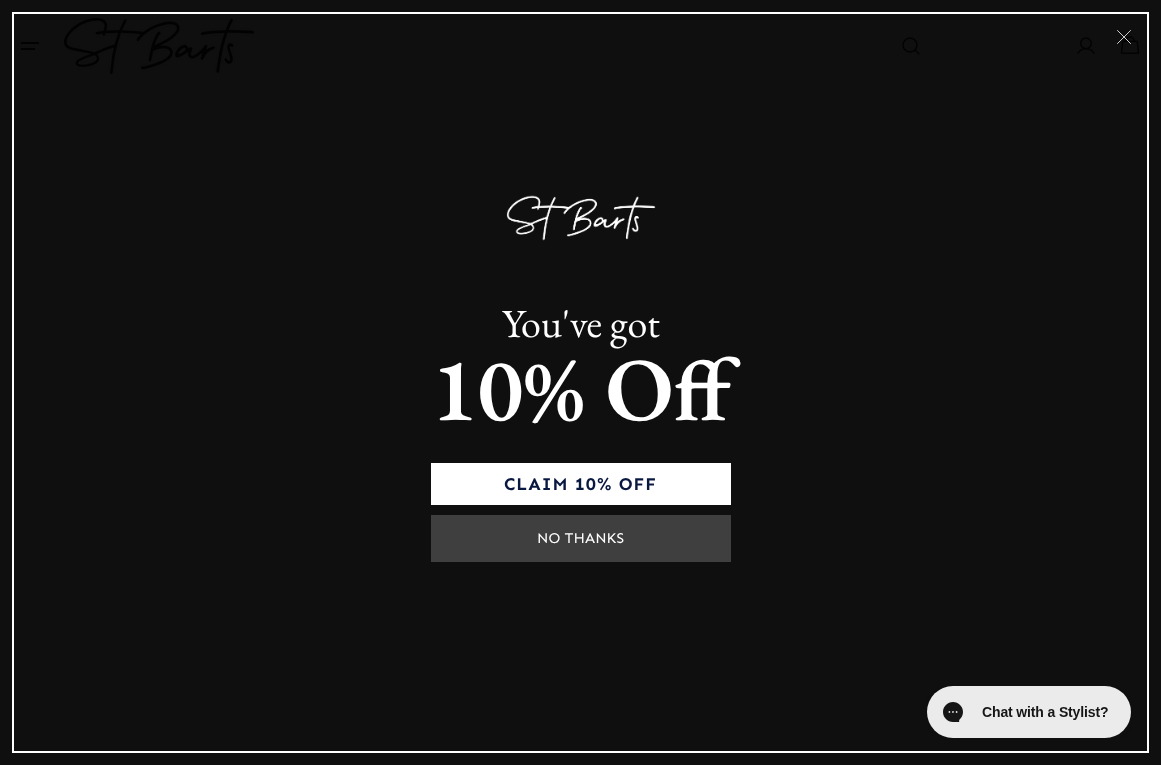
<svg xmlns="http://www.w3.org/2000/svg" xmlns:xlink="http://www.w3.org/1999/xlink" width="1161" height="765" viewBox="0 0 1161 765">
<style>
.cls-1{font:40px EB Garamond;fill:#ffffff}
.cls-2{font:600 90px EB Garamond;fill:#ffffff}
.cls-3{font:bold 18px Sen;letter-spacing:1px;fill:#091840}
.cls-4{font:15px Sen;fill:#ffffff}
</style>
<rect width="100%" height="100%" fill="#0f0f0f"/>
<rect fill="#020202" x="21" y="42" width="18" height="2"/>
<rect fill="#020202" x="21" y="48" width="14" height="2"/>
<image xlink:href="image0.png" x="64" y="18" width="190" height="56"/>
<image xlink:href="image1.png" x="902" y="37" width="18" height="18"/>
<image xlink:href="image2.png" x="1077" y="37" width="18" height="17"/>
<image xlink:href="image3.png" x="1120" y="36" width="20" height="18"/>
<rect fill="none" stroke="#ffffff" stroke-width="2" x="13" y="13" width="1135" height="739"/>
<path fill="none" stroke="#ffffff" stroke-width="0.8" stroke-linecap="round" d="M1117.5 30.5L1130.5 43.5M1130.5 30.5L1117.5 43.5"/>
<image xlink:href="image4.png" x="506" y="195" width="150" height="46"/>
<rect fill="#ffffff" x="431" y="463" width="300" height="42"/>
<rect fill="#3f3f3f" x="431" y="515" width="300" height="47"/>
<image xlink:href="image5.png" x="927" y="686" width="204" height="52"/>
<text class="cls-1" x="502" y="337">You've got</text>
<text class="cls-2" x="431" y="420">10% Off</text>
<text class="cls-3" x="504" y="490">CLAIM 10% OFF</text>
<text class="cls-4" x="537" y="543">NO THANKS</text>
</svg>
